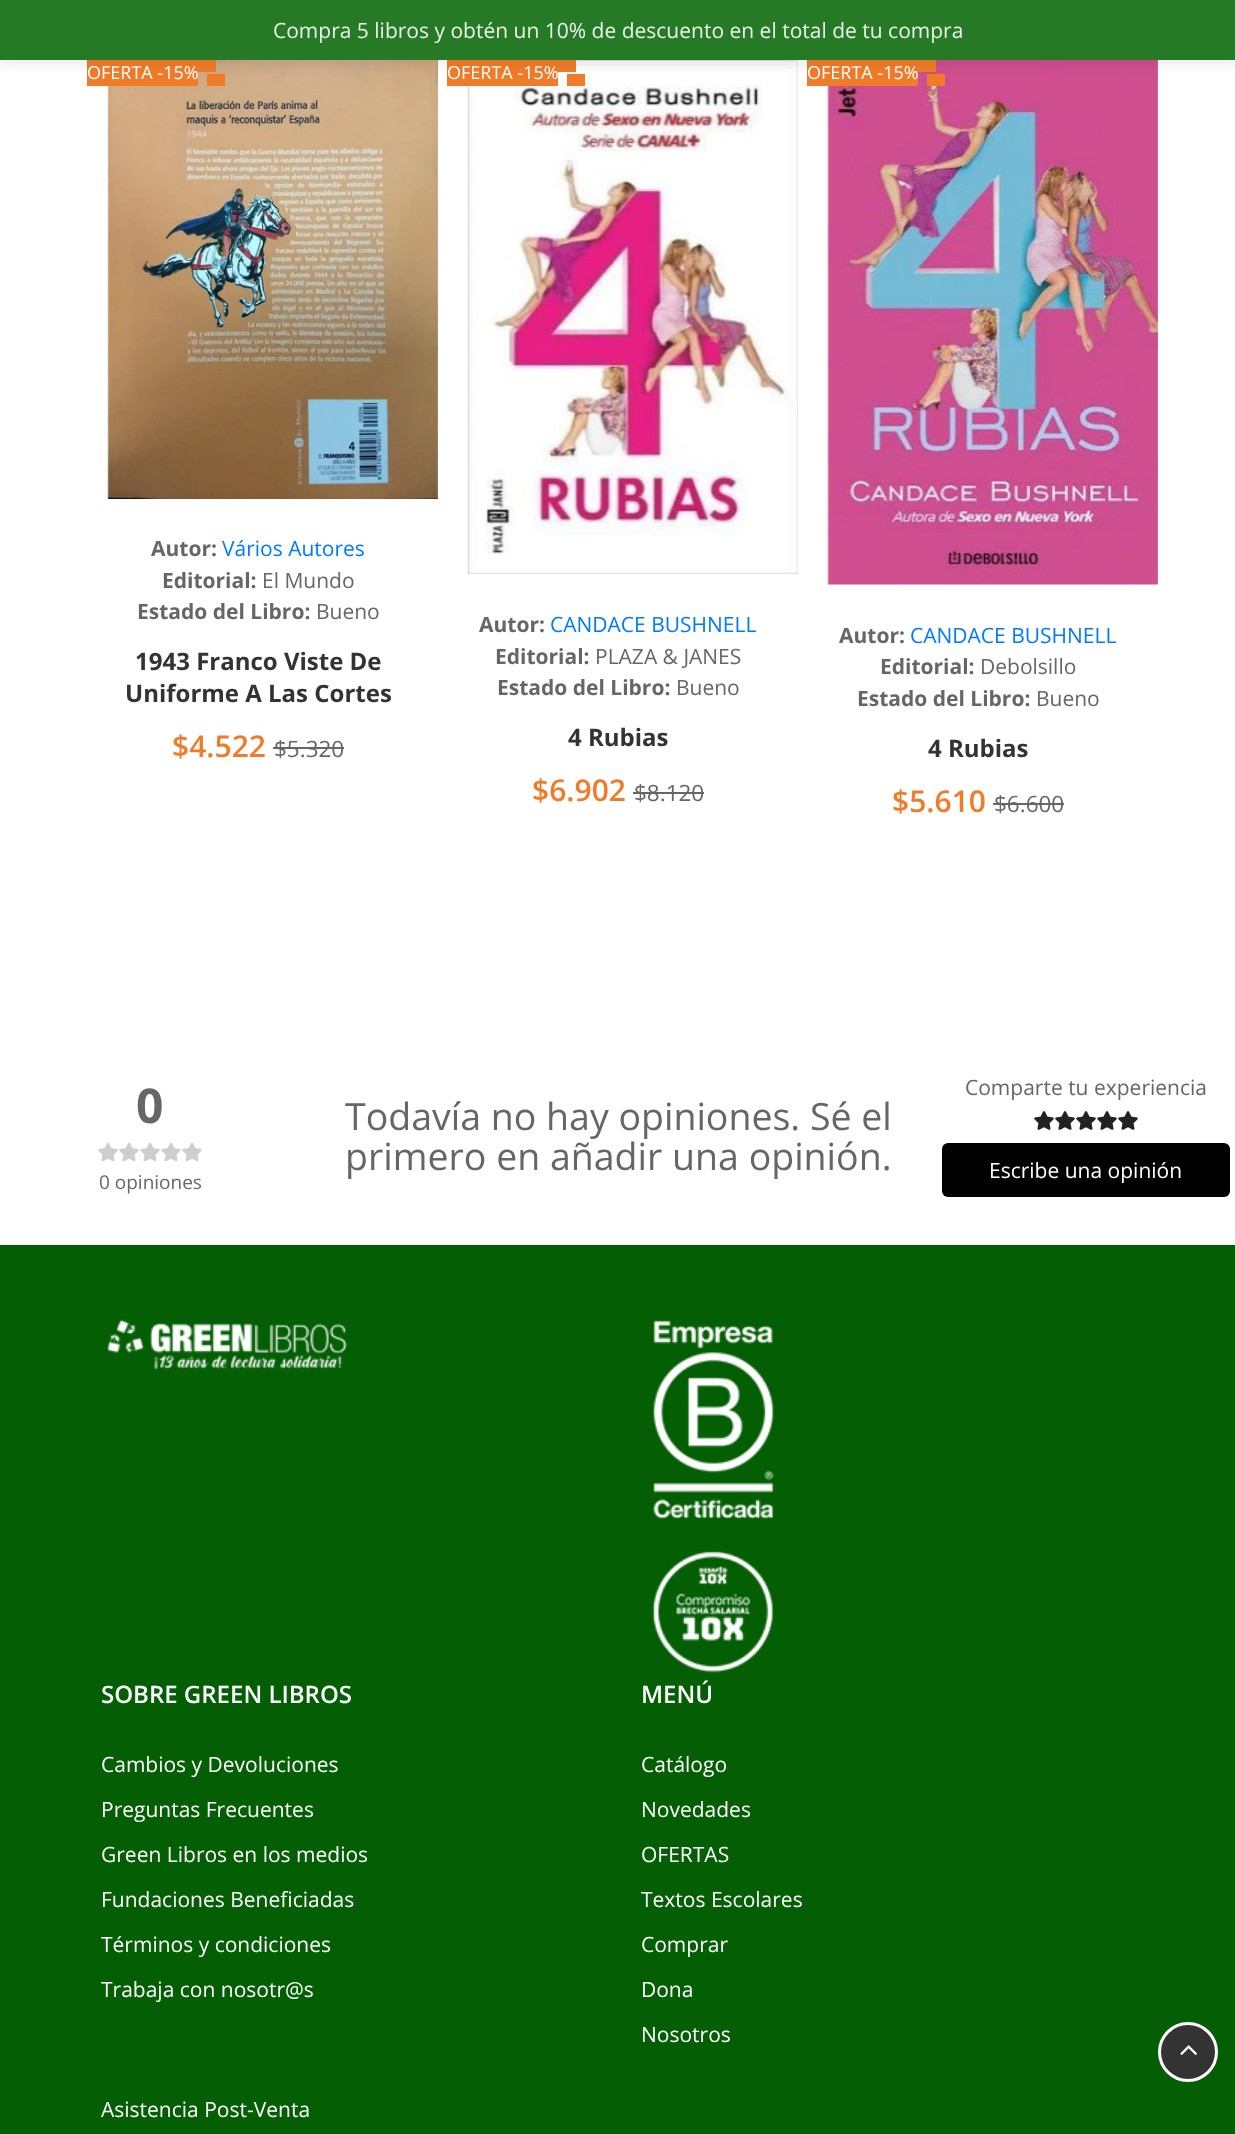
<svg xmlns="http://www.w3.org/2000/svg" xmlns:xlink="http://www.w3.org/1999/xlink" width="1235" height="2134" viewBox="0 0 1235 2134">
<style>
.cls-1{font:21px Open Sans;fill:#eaf3ea}
.cls-2{font:18px Open Sans;fill:#ffffff}
.cls-3{font:bold 21px Open Sans;fill:#666666}
.cls-4{font:21px Open Sans;fill:#007bff}
.cls-5{font:21px Open Sans;fill:#666666}
.cls-6{font:bold 24px Open Sans;fill:#333333}
.cls-7{font:600 30px Open Sans;fill:#f07c29}
.cls-8{font:22.5px Open Sans;fill:#666666}
.cls-9{font:bold 48px Open Sans;fill:#666666}
.cls-10{font:19px Open Sans;fill:#666666}
.cls-11{font:37.5px Open Sans;fill:#666666}
.cls-12{font:21px Open Sans;fill:#ffffff}
.cls-13{font:600 24px Open Sans;fill:#ffffff}
</style>
<rect width="100%" height="100%" fill="#ffffff"/>
<image xlink:href="image0.png" x="107" y="60" width="331" height="439"/>
<rect fill="#f07c29" x="198" y="60" width="18" height="12"/>
<rect fill="#f07c29" x="87" y="60" width="111" height="26"/>
<rect fill="#f07c29" x="207" y="74" width="18" height="12"/>
<path fill="#f07c29" d="M207 85.5V73.5L211.5 79.5Z"/>
<image xlink:href="image1.png" x="467" y="60" width="331" height="514"/>
<rect fill="#f07c29" x="558" y="60" width="18" height="12"/>
<rect fill="#f07c29" x="447" y="60" width="111" height="26"/>
<rect fill="#f07c29" x="567" y="74" width="18" height="12"/>
<path fill="#f07c29" d="M567 85.5V73.5L571.5 79.5Z"/>
<image xlink:href="image2.png" x="827" y="60" width="331" height="525"/>
<rect fill="#f07c29" x="918" y="60" width="18" height="12"/>
<rect fill="#f07c29" x="807" y="60" width="111" height="26"/>
<rect fill="#f07c29" x="927" y="74" width="18" height="12"/>
<path fill="#f07c29" d="M927 85.5V73.5L931.5 79.5Z"/>
<rect fill="#000000" fill-opacity="0.11" filter="blur(7px)" x="-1" y="-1" width="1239" height="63"/>
<rect fill="#267a25" x="0" y="0" width="1235" height="60"/>
<rect fill="#666666" x="273" y="747" width="71" height="2"/>
<rect fill="#666666" x="633" y="792" width="71" height="2"/>
<rect fill="#666666" x="993" y="803" width="71" height="2"/>
<image xlink:href="image3.png" x="98" y="1142" width="20" height="20"/>
<image xlink:href="image3.png" x="119" y="1142" width="20" height="20"/>
<image xlink:href="image3.png" x="140" y="1142" width="20" height="20"/>
<image xlink:href="image3.png" x="161" y="1142" width="20" height="20"/>
<image xlink:href="image3.png" x="182" y="1142" width="20" height="20"/>
<image xlink:href="image4.png" x="1034" y="1111" width="20" height="19"/>
<image xlink:href="image4.png" x="1055" y="1111" width="20" height="19"/>
<image xlink:href="image4.png" x="1076" y="1111" width="20" height="19"/>
<image xlink:href="image4.png" x="1097" y="1111" width="20" height="19"/>
<image xlink:href="image4.png" x="1118" y="1111" width="20" height="19"/>
<image xlink:href="image5.png" x="1034" y="1111" width="20" height="19"/>
<image xlink:href="image5.png" x="1055" y="1111" width="20" height="19"/>
<image xlink:href="image5.png" x="1076" y="1111" width="20" height="19"/>
<image xlink:href="image5.png" x="1097" y="1111" width="20" height="19"/>
<image xlink:href="image5.png" x="1118" y="1111" width="20" height="19"/>
<rect fill="#000000" x="942" y="1143" width="288" height="54" rx="6"/>
<rect fill="#045e04" x="0" y="1245" width="1235" height="889"/>
<image xlink:href="image6.png" x="107" y="1319" width="240" height="51"/>
<image xlink:href="image7.png" x="652" y="1320" width="123" height="353"/>
<circle fill="#333333" stroke="#ffffff" stroke-width="3" cx="1188" cy="2052" r="28.5"/>
<image xlink:href="image8.png" x="1180" y="2045" width="17" height="10"/>
<text class="cls-1" x="273" y="38">Compra 5 libros y obtén un 10% de descuento en el total de tu compra</text>
<text class="cls-2" x="87" y="79">OFERTA -15%</text>
<text class="cls-3" x="151" y="556">Autor:</text>
<text class="cls-4" x="222" y="556">Vários Autores</text>
<text class="cls-3" x="162" y="588">Editorial:</text>
<text class="cls-5" x="262" y="588">El Mundo</text>
<text class="cls-3" x="137" y="619">Estado del Libro:</text>
<text class="cls-5" x="316" y="619">Bueno</text>
<text class="cls-6" x="135" y="670">1943 Franco Viste De</text>
<text class="cls-6" x="125" y="702">Uniforme A Las Cortes</text>
<text class="cls-7" x="172" y="757">$4.522</text>
<text class="cls-8" x="274" y="757">$5.320</text>
<text class="cls-2" x="447" y="79">OFERTA -15%</text>
<text class="cls-3" x="479" y="632">Autor:</text>
<text class="cls-4" x="550" y="632">CANDACE BUSHNELL</text>
<text class="cls-3" x="495" y="664">Editorial:</text>
<text class="cls-5" x="595" y="664">PLAZA &amp; JANES</text>
<text class="cls-3" x="497" y="695">Estado del Libro:</text>
<text class="cls-5" x="676" y="695">Bueno</text>
<text class="cls-6" x="568" y="746">4 Rubias</text>
<text class="cls-7" x="532" y="801">$6.902</text>
<text class="cls-8" x="634" y="801">$8.120</text>
<text class="cls-2" x="807" y="79">OFERTA -15%</text>
<text class="cls-3" x="839" y="643">Autor:</text>
<text class="cls-4" x="910" y="643">CANDACE BUSHNELL</text>
<text class="cls-3" x="880" y="674">Editorial:</text>
<text class="cls-5" x="980" y="674">Debolsillo</text>
<text class="cls-3" x="857" y="706">Estado del Libro:</text>
<text class="cls-5" x="1036" y="706">Bueno</text>
<text class="cls-6" x="928" y="757">4 Rubias</text>
<text class="cls-7" x="892" y="812">$5.610</text>
<text class="cls-8" x="994" y="812">$6.600</text>
<text class="cls-9" x="136" y="1123">0</text>
<text class="cls-10" x="99" y="1189">0 opiniones</text>
<text class="cls-11"><tspan x="345" y="1130">Todavía no hay opiniones. Sé el</tspan><tspan x="345" y="1170">primero en añadir una opinión.</tspan></text>
<text class="cls-5" x="965" y="1095">Comparte tu experiencia</text>
<text class="cls-12" x="989" y="1178">Escribe una opinión</text>
<text class="cls-13" x="101" y="1703">SOBRE GREEN LIBROS</text>
<text class="cls-12" x="101" y="1772">Cambios y Devoluciones</text>
<text class="cls-12" x="101" y="1817">Preguntas Frecuentes</text>
<text class="cls-12" x="101" y="1862">Green Libros en los medios</text>
<text class="cls-12" x="101" y="1907">Fundaciones Beneficiadas</text>
<text class="cls-12" x="101" y="1952">Términos y condiciones</text>
<text class="cls-12" x="101" y="1997">Trabaja con nosotr@s</text>
<text class="cls-13" x="641" y="1703">MENÚ</text>
<text class="cls-12" x="641" y="1772">Catálogo</text>
<text class="cls-12" x="641" y="1817">Novedades</text>
<text class="cls-12" x="641" y="1862">OFERTAS</text>
<text class="cls-12" x="641" y="1907">Textos Escolares</text>
<text class="cls-12" x="641" y="1952">Comprar</text>
<text class="cls-12" x="641" y="1997">Dona</text>
<text class="cls-12" x="641" y="2042">Nosotros</text>
<text class="cls-12" x="101" y="2117">Asistencia Post-Venta</text>
</svg>
